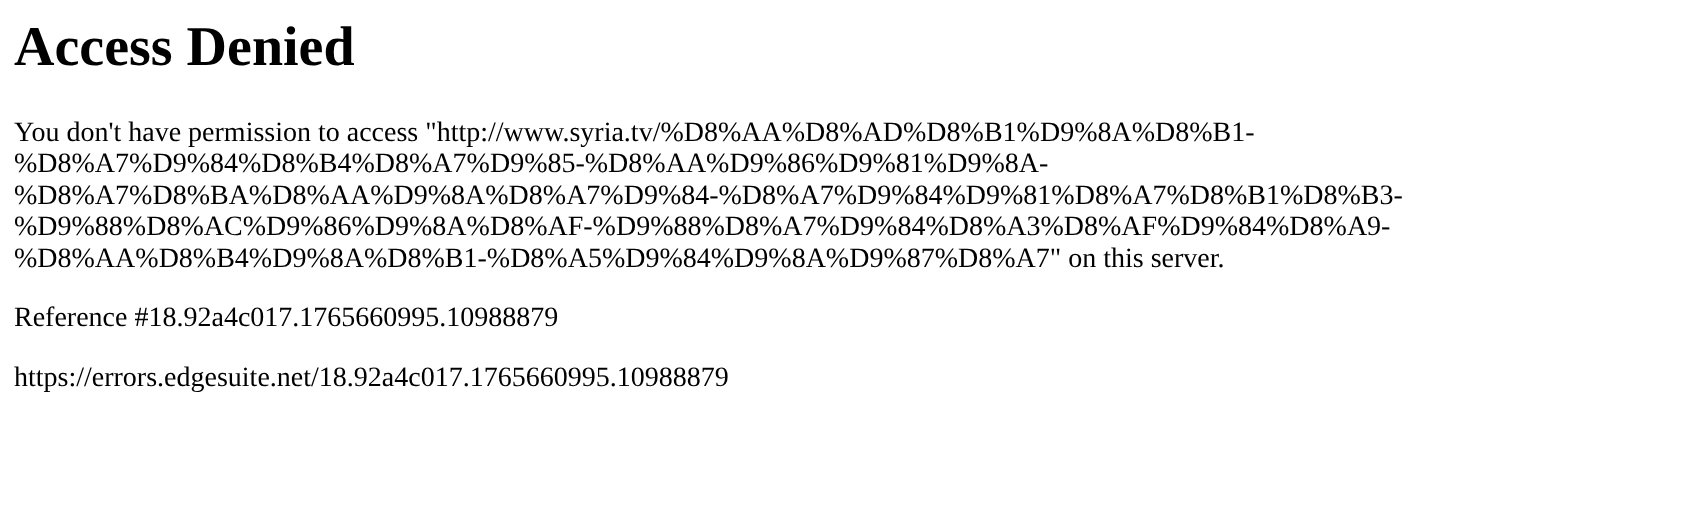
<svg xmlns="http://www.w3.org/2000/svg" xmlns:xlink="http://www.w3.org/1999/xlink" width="1681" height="524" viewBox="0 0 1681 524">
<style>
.cls-1{font:bold 56px Liberation Serif;fill:#000000}
.cls-2{font:28px Liberation Serif;fill:#000000}
</style>
<rect width="100%" height="100%" fill="#ffffff"/>
<text class="cls-1" x="14" y="65">Access Denied</text>
<text class="cls-2"><tspan x="14" y="141">You don't have permission to access "http://www.syria.tv/%D8%AA%D8%AD%D8%B1%D9%8A%D8%B1-</tspan><tspan x="14" y="172">%D8%A7%D9%84%D8%B4%D8%A7%D9%85-%D8%AA%D9%86%D9%81%D9%8A-</tspan><tspan x="14" y="204">%D8%A7%D8%BA%D8%AA%D9%8A%D8%A7%D9%84-%D8%A7%D9%84%D9%81%D8%A7%D8%B1%D8%B3-</tspan><tspan x="14" y="235">%D9%88%D8%AC%D9%86%D9%8A%D8%AF-%D9%88%D8%A7%D9%84%D8%A3%D8%AF%D9%84%D8%A9-</tspan><tspan x="14" y="267">%D8%AA%D8%B4%D9%8A%D8%B1-%D8%A5%D9%84%D9%8A%D9%87%D8%A7" on this server.</tspan></text>
<text class="cls-2" x="14" y="326">Reference #18.92a4c017.1765660995.10988879</text>
<text class="cls-2" x="14" y="386">https://errors.edgesuite.net/18.92a4c017.1765660995.10988879</text>
</svg>
